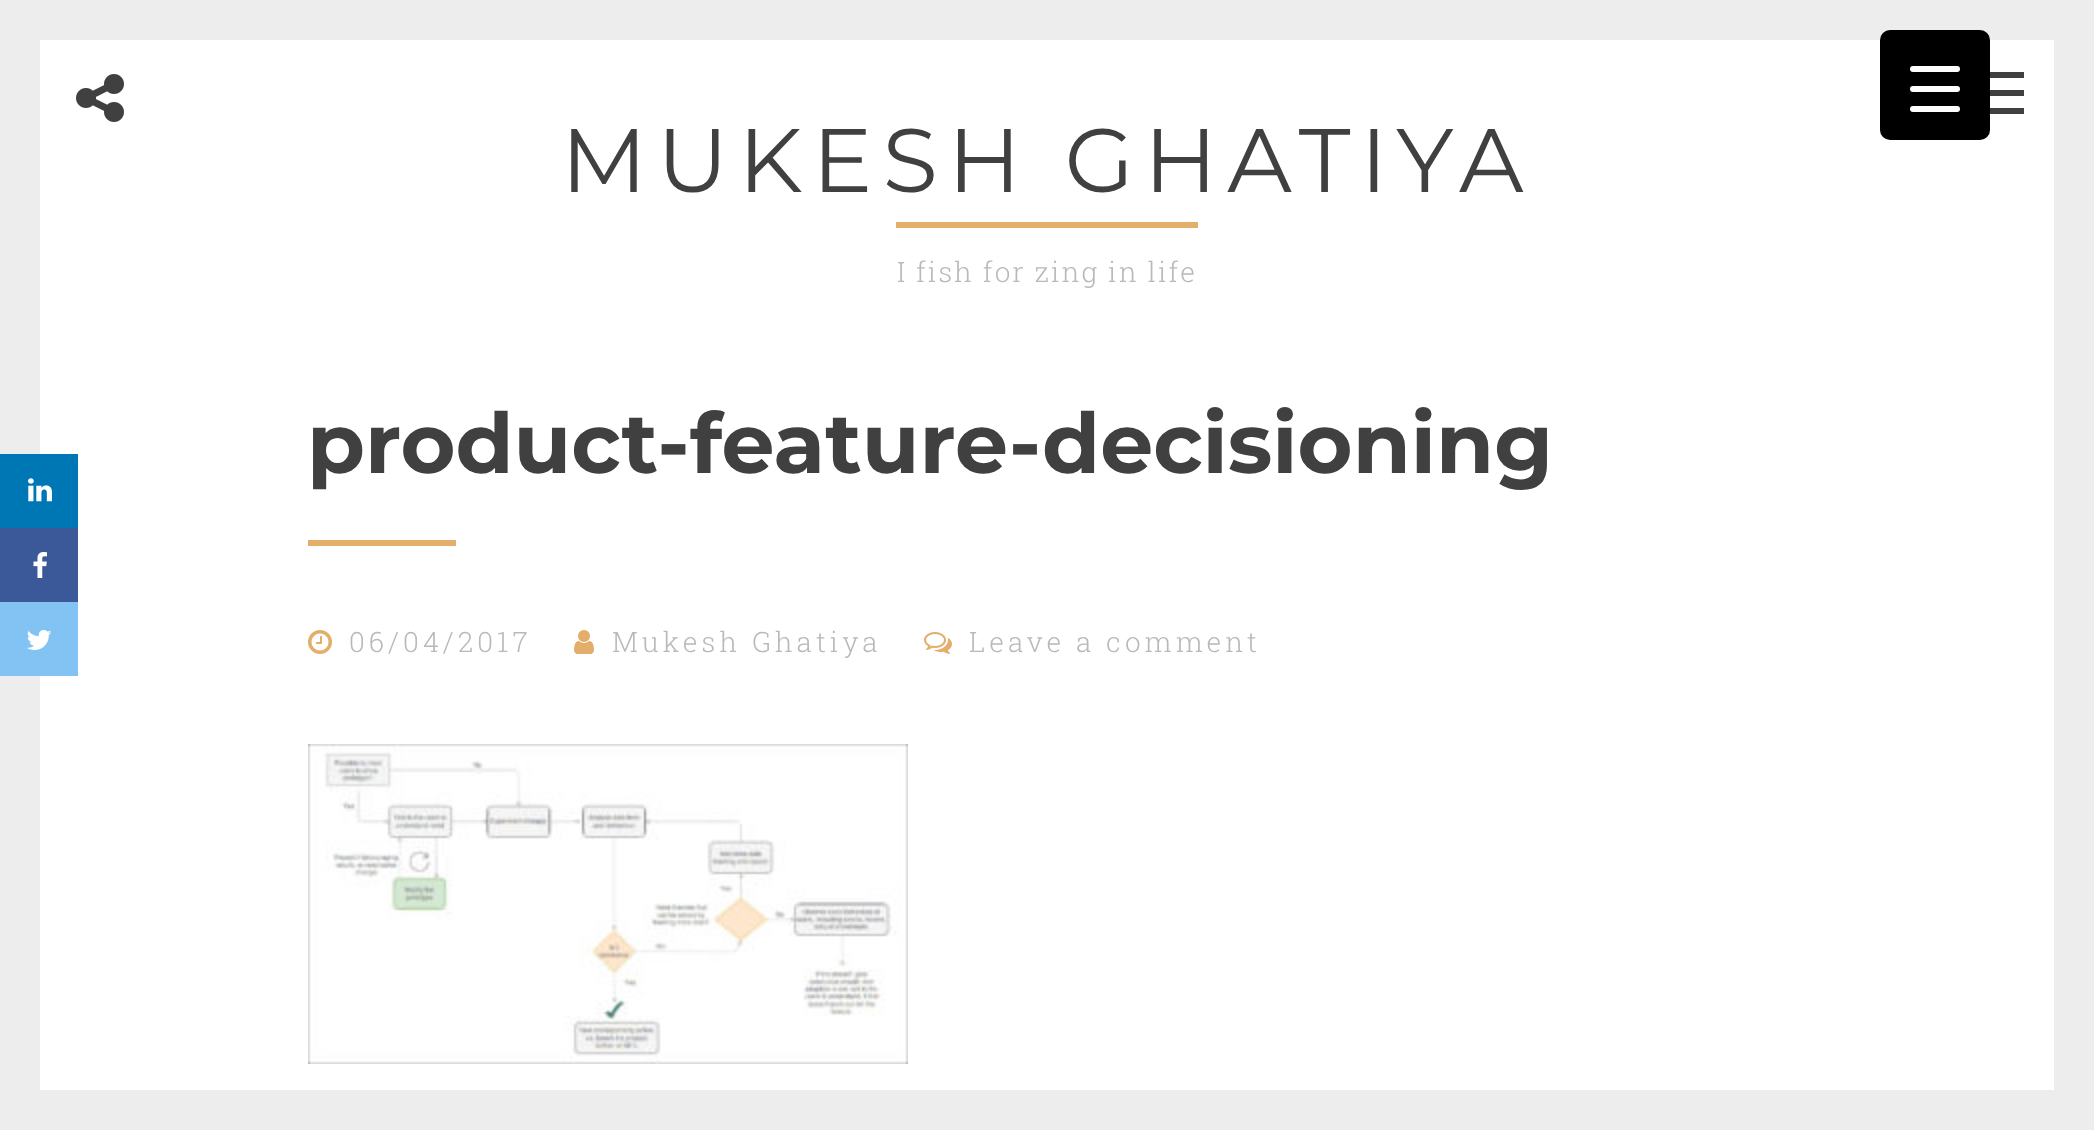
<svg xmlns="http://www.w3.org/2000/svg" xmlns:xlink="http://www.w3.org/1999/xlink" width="2094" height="1130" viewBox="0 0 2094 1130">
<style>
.cls-1{font:90px Montserrat;letter-spacing:10px;fill:#404040}
.cls-2{font:300 28px Roboto Slab;letter-spacing:2px;fill:#b9b9b9}
.cls-3{font:bold 84px Montserrat;fill:#404040}
.cls-4{font:300 28px Roboto Slab;letter-spacing:4px;fill:#b9b9b9}
</style>
<rect width="100%" height="100%" fill="#ffffff"/>
<rect fill="#ededed" x="0" y="0" width="40" height="1130"/>
<rect fill="#ededed" x="40" y="0" width="2014" height="40"/>
<rect fill="#ededed" x="2054" y="0" width="40" height="1130"/>
<rect fill="#000000" x="1880" y="30" width="110" height="110" rx="10"/>
<rect fill="#ffffff" x="1910" y="86" width="50" height="6" rx="3"/>
<rect fill="#ffffff" x="1910" y="66" width="50" height="6" rx="3"/>
<rect fill="#ffffff" x="1910" y="106" width="50" height="6" rx="3"/>
<rect fill="#0077b5" x="0" y="454" width="78" height="74"/>
<image xlink:href="image0.png" x="28" y="478" width="24" height="24"/>
<rect fill="#3b5998" x="0" y="528" width="78" height="74"/>
<image xlink:href="image1.png" x="33" y="552" width="14" height="26"/>
<rect fill="#83c3f3" x="0" y="602" width="78" height="74"/>
<image xlink:href="image2.png" x="27" y="630" width="25" height="20"/>
<image xlink:href="image3.png" x="76" y="74" width="48" height="48"/>
<rect fill="#404040" x="1990" y="90" width="34" height="6"/>
<rect fill="#404040" x="1990" y="72" width="34" height="6"/>
<rect fill="#404040" x="1990" y="108" width="34" height="6"/>
<rect fill="#e2ae69" x="896" y="222" width="302" height="6"/>
<rect fill="#e2ae69" x="308" y="540" width="148" height="6"/>
<image xlink:href="image4.png" x="308" y="630" width="24" height="24"/>
<image xlink:href="image5.png" x="574" y="630" width="20" height="24"/>
<image xlink:href="image6.png" x="924" y="632" width="28" height="22"/>
<image xlink:href="image7.png" x="308" y="744" width="600" height="320"/>
<rect fill="#ededed" x="40" y="1090" width="2014" height="40"/>
<text class="cls-1" x="561" y="192">MUKESH GHATIYA</text>
<text class="cls-2" x="897" y="282">I fish for zing in life</text>
<text class="cls-3" x="307" y="473">product-feature-decisioning</text>
<text class="cls-4" x="349" y="652">06/04/2017</text>
<text class="cls-4" x="612" y="652">Mukesh Ghatiya</text>
<text class="cls-4" x="969" y="652">Leave a comment</text>
</svg>
